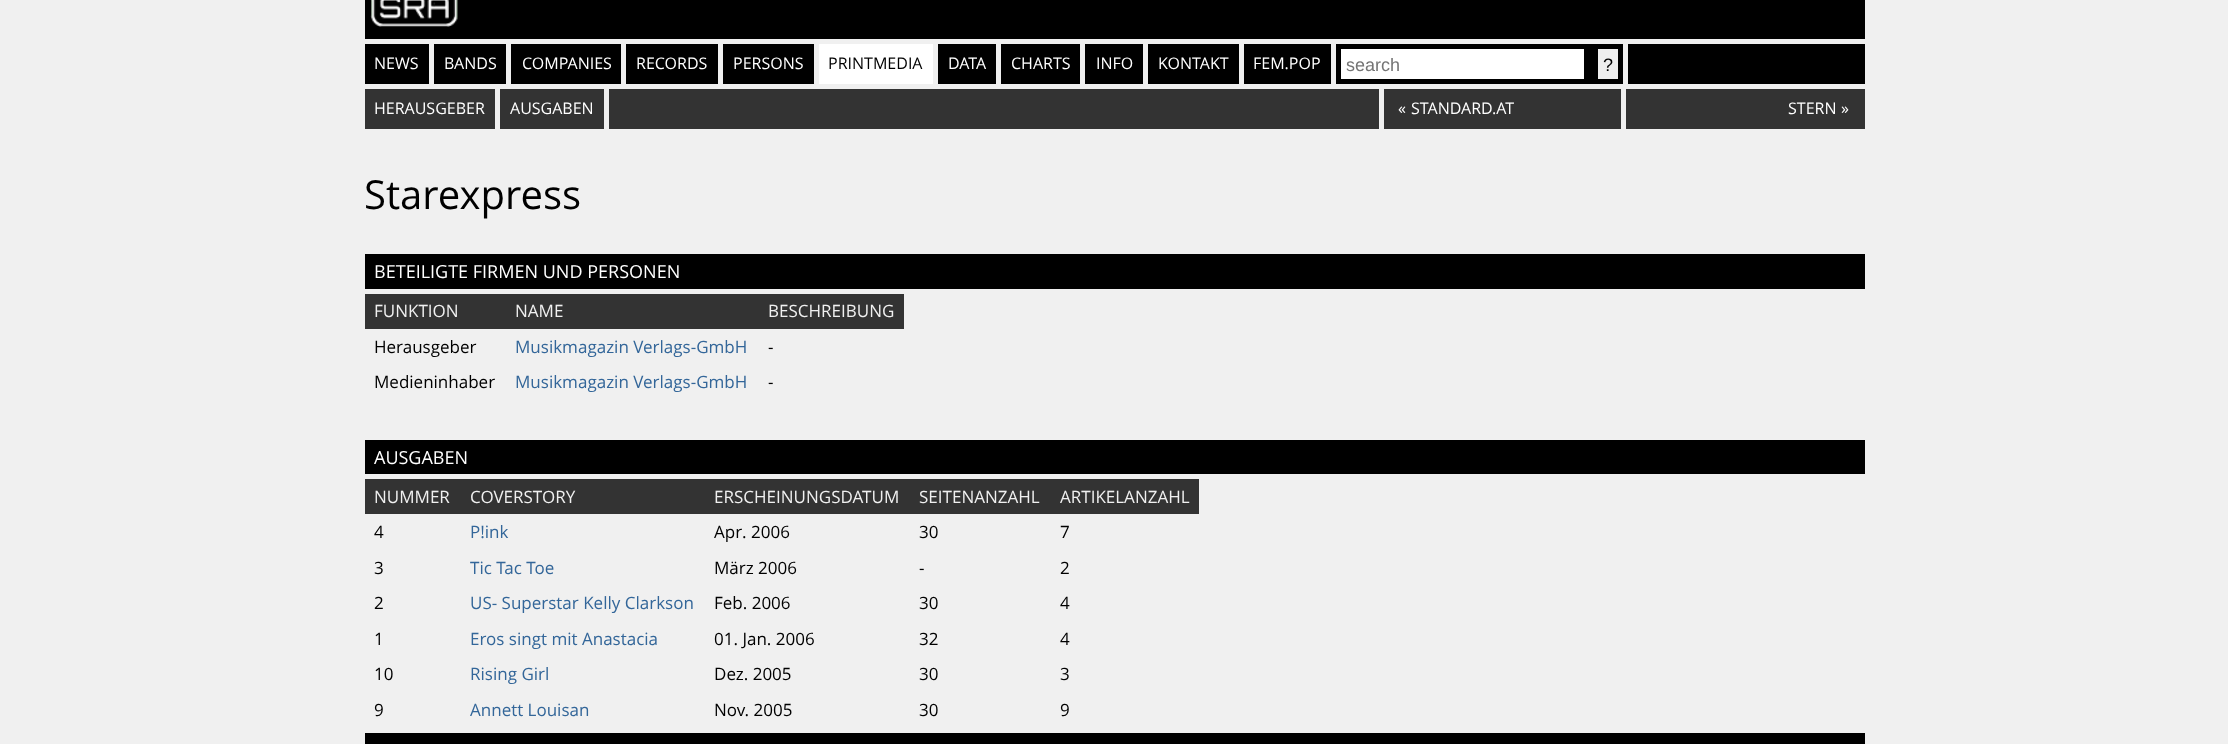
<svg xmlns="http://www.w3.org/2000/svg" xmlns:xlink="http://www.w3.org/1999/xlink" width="2228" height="744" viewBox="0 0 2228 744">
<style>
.cls-1{font:16px Open Sans;fill:#ffffff}
.cls-2{font:16px Open Sans;fill:#000000}
.cls-3{font:18px Liberation Sans;fill:#757575}
.cls-4{font:18px Liberation Sans;fill:#000000}
.cls-5{font:40px Open Sans;fill:#000000}
.cls-6{font:18px Open Sans;fill:#ffffff}
.cls-7{font:17px Open Sans;fill:#f0f0f0}
.cls-8{font:17px Open Sans;fill:#000000}
.cls-9{font:17px Open Sans;fill:#336699}
</style>
<rect width="100%" height="100%" fill="#f0f0f0"/>
<rect fill="#000000" x="365" y="0" width="1500" height="39"/>
<image xlink:href="image0.png" x="370" y="0" width="88" height="27"/>
<rect fill="#000000" x="365" y="44" width="64" height="40"/>
<rect fill="#000000" x="434" y="44" width="72" height="40"/>
<rect fill="#000000" x="511" y="44" width="110" height="40"/>
<rect fill="#000000" x="626" y="44" width="92" height="40"/>
<rect fill="#000000" x="723" y="44" width="91" height="40"/>
<rect fill="#ffffff" x="819" y="44" width="114" height="40"/>
<rect fill="#000000" x="938" y="44" width="58" height="40"/>
<rect fill="#000000" x="1001" y="44" width="79" height="40"/>
<rect fill="#000000" x="1085" y="44" width="58" height="40"/>
<rect fill="#000000" x="1148" y="44" width="91" height="40"/>
<rect fill="#000000" x="1244" y="44" width="87" height="40"/>
<rect fill="#000000" x="1336" y="44" width="287" height="40"/>
<rect fill="#ffffff" x="1341" y="49" width="243" height="30"/>
<rect fill="#efefef" x="1598" y="49" width="20" height="30"/>
<rect fill="#000000" x="1628" y="44" width="237" height="40"/>
<rect fill="#333333" x="365" y="89" width="130" height="40"/>
<rect fill="#333333" x="500" y="89" width="104" height="40"/>
<rect fill="#333333" x="609" y="89" width="770" height="40"/>
<rect fill="#333333" x="1384" y="89" width="237" height="40"/>
<rect fill="#333333" x="1626" y="89" width="239" height="40"/>
<rect fill="#000000" x="365" y="254" width="1500" height="35"/>
<rect fill="#333333" x="365" y="294" width="539" height="35"/>
<rect fill="#000000" x="365" y="440" width="1500" height="34"/>
<rect fill="#333333" x="365" y="479" width="834" height="35"/>
<rect fill="#000000" x="365" y="733" width="1500" height="11"/>
<text class="cls-1" x="374" y="69">NEWS</text>
<text class="cls-1" x="444" y="69">BANDS</text>
<text class="cls-1" x="522" y="69">COMPANIES</text>
<text class="cls-1" x="636" y="69">RECORDS</text>
<text class="cls-1" x="733" y="69">PERSONS</text>
<text class="cls-2" x="828" y="69">PRINTMEDIA</text>
<text class="cls-1" x="948" y="69">DATA</text>
<text class="cls-1" x="1011" y="69">CHARTS</text>
<text class="cls-1" x="1096" y="69">INFO</text>
<text class="cls-1" x="1158" y="69">KONTAKT</text>
<text class="cls-1" x="1253" y="69">FEM.POP</text>
<text class="cls-3" x="1346" y="71">search</text>
<text class="cls-4" x="1603" y="71">?</text>
<text class="cls-1" x="374" y="114">HERAUSGEBER</text>
<text class="cls-1" x="510" y="114">AUSGABEN</text>
<text class="cls-1" x="1398" y="114">«</text>
<text class="cls-1" x="1411" y="114">STANDARD.AT</text>
<text class="cls-1" x="1788" y="114">STERN</text>
<text class="cls-1" x="1841" y="114">»</text>
<text class="cls-5" x="364" y="209">Starexpress</text>
<text class="cls-6" x="374" y="278">BETEILIGTE FIRMEN UND PERSONEN</text>
<text class="cls-7" x="374" y="317">FUNKTION</text>
<text class="cls-7" x="515" y="317">NAME</text>
<text class="cls-7" x="768" y="317">BESCHREIBUNG</text>
<text class="cls-8" x="374" y="353">Herausgeber</text>
<text class="cls-9" x="515" y="353">Musikmagazin Verlags-GmbH</text>
<text class="cls-8" x="768" y="353">-</text>
<text class="cls-8" x="374" y="388">Medieninhaber</text>
<text class="cls-9" x="515" y="388">Musikmagazin Verlags-GmbH</text>
<text class="cls-8" x="768" y="388">-</text>
<text class="cls-6" x="374" y="464">AUSGABEN</text>
<text class="cls-7" x="374" y="503">NUMMER</text>
<text class="cls-7" x="470" y="503">COVERSTORY</text>
<text class="cls-7" x="714" y="503">ERSCHEINUNGSDATUM</text>
<text class="cls-7" x="919" y="503">SEITENANZAHL</text>
<text class="cls-7" x="1060" y="503">ARTIKELANZAHL</text>
<text class="cls-8" x="374" y="538">4</text>
<text class="cls-9" x="470" y="538">P!ink</text>
<text class="cls-8" x="714" y="538">Apr. 2006</text>
<text class="cls-8" x="919" y="538">30</text>
<text class="cls-8" x="1060" y="538">7</text>
<text class="cls-8" x="374" y="574">3</text>
<text class="cls-9" x="470" y="574">Tic Tac Toe</text>
<text class="cls-8" x="714" y="574">März 2006</text>
<text class="cls-8" x="919" y="574">-</text>
<text class="cls-8" x="1060" y="574">2</text>
<text class="cls-8" x="374" y="609">2</text>
<text class="cls-9" x="470" y="609">US- Superstar Kelly Clarkson</text>
<text class="cls-8" x="714" y="609">Feb. 2006</text>
<text class="cls-8" x="919" y="609">30</text>
<text class="cls-8" x="1060" y="609">4</text>
<text class="cls-8" x="374" y="645">1</text>
<text class="cls-9" x="470" y="645">Eros singt mit Anastacia</text>
<text class="cls-8" x="714" y="645">01. Jan. 2006</text>
<text class="cls-8" x="919" y="645">32</text>
<text class="cls-8" x="1060" y="645">4</text>
<text class="cls-8" x="374" y="680">10</text>
<text class="cls-9" x="470" y="680">Rising Girl</text>
<text class="cls-8" x="714" y="680">Dez. 2005</text>
<text class="cls-8" x="919" y="680">30</text>
<text class="cls-8" x="1060" y="680">3</text>
<text class="cls-8" x="374" y="716">9</text>
<text class="cls-9" x="470" y="716">Annett Louisan</text>
<text class="cls-8" x="714" y="716">Nov. 2005</text>
<text class="cls-8" x="919" y="716">30</text>
<text class="cls-8" x="1060" y="716">9</text>
</svg>
